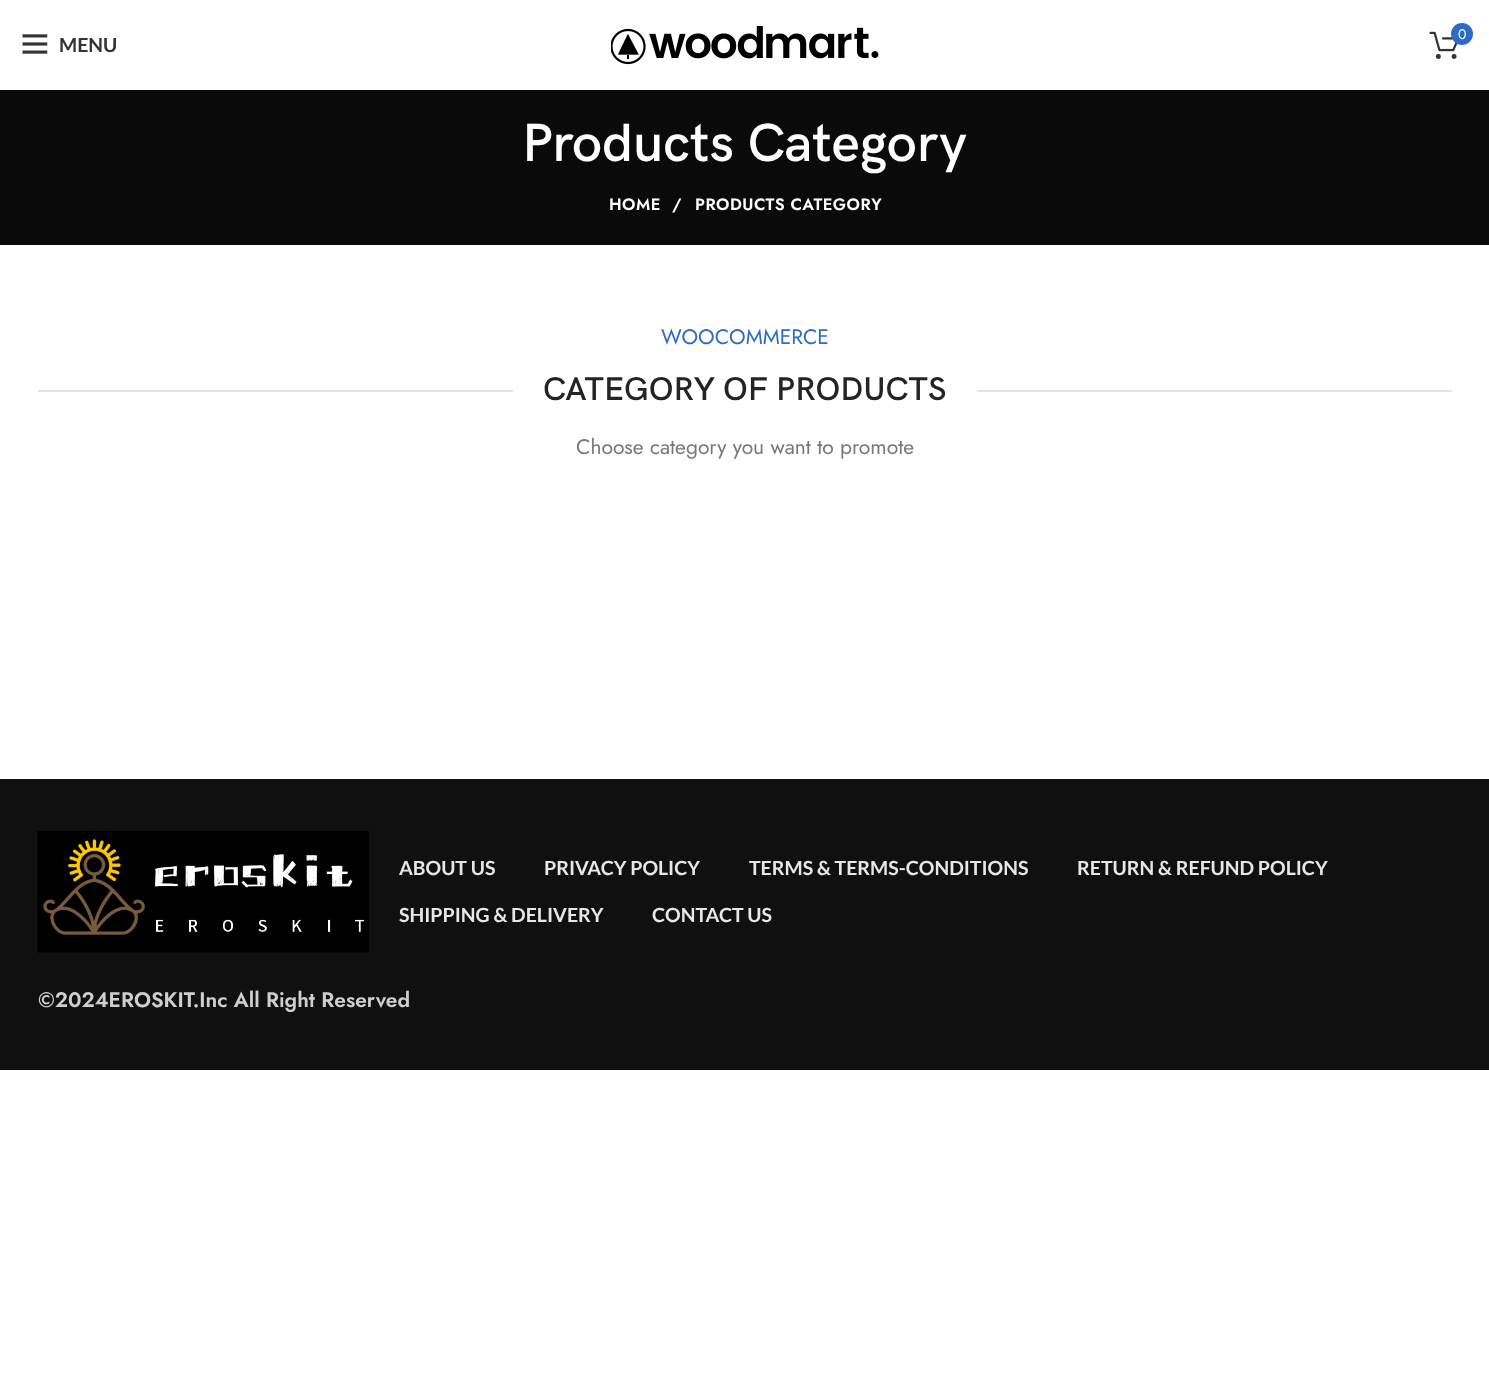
<svg xmlns="http://www.w3.org/2000/svg" xmlns:xlink="http://www.w3.org/1999/xlink" width="1489" height="1375" viewBox="0 0 1489 1375">
<style>
.cls-1{font:14px Jost;fill:#ffffff}
.cls-2{font:bold 19.5px Lato;fill:#333333}
.cls-3{font:600 54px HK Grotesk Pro;fill:#ffffff}
.cls-4{font:600 16.5px Jost;letter-spacing:0.5px;fill:#ffffff}
.cls-5{font:21px Jost;fill:#2e6bc6}
.cls-6{font:600 33px HK Grotesk Pro;fill:#242424}
.cls-7{font:21px Jost;fill:#777777}
.cls-8{font:bold 19.5px Lato;fill:#e7e7e7}
.cls-9{font:600 21px Jost;fill:#cfcfcf}
</style>
<rect width="100%" height="100%" fill="#ffffff"/>
<image xlink:href="image0.png" x="611" y="26" width="268" height="39"/>
<image xlink:href="image1.png" x="1429" y="31" width="29" height="28"/>
<circle fill="#2e6bc6" cx="1462" cy="34" r="11"/>
<image xlink:href="image2.png" x="22" y="34" width="26" height="20"/>
<rect fill="#0a0a0a" x="0" y="90" width="1489" height="155"/>
<rect fill="#e4e4e4" x="38" y="390" width="475" height="2"/>
<rect fill="#e4e4e4" x="977" y="390" width="475" height="2"/>
<rect fill="#101010" x="0" y="779" width="1489" height="291"/>
<image xlink:href="image3.png" x="37" y="831" width="332" height="122"/>
<text class="cls-1" x="1458" y="39">0</text>
<text class="cls-2" x="59" y="52">MENU</text>
<text class="cls-3" x="522" y="161">Products Category</text>
<text class="cls-4" x="609" y="210">HOME</text>
<text class="cls-4" x="672" y="210">/</text>
<text class="cls-4" x="695" y="210">PRODUCTS CATEGORY</text>
<text class="cls-5" x="661" y="344">WOOCOMMERCE</text>
<text class="cls-6" x="543" y="400">CATEGORY OF PRODUCTS</text>
<text class="cls-7" x="576" y="454">Choose category you want to promote</text>
<text class="cls-8" x="399" y="875">ABOUT US</text>
<text class="cls-8" x="544" y="875">PRIVACY POLICY</text>
<text class="cls-8" x="749" y="875">TERMS &amp; TERMS-CONDITIONS</text>
<text class="cls-8" x="1077" y="875">RETURN &amp; REFUND POLICY</text>
<text class="cls-8" x="399" y="922">SHIPPING &amp; DELIVERY</text>
<text class="cls-8" x="652" y="922">CONTACT US</text>
<text class="cls-9" x="38" y="1007">©2024EROSKIT.Inc All Right Reserved</text>
</svg>
